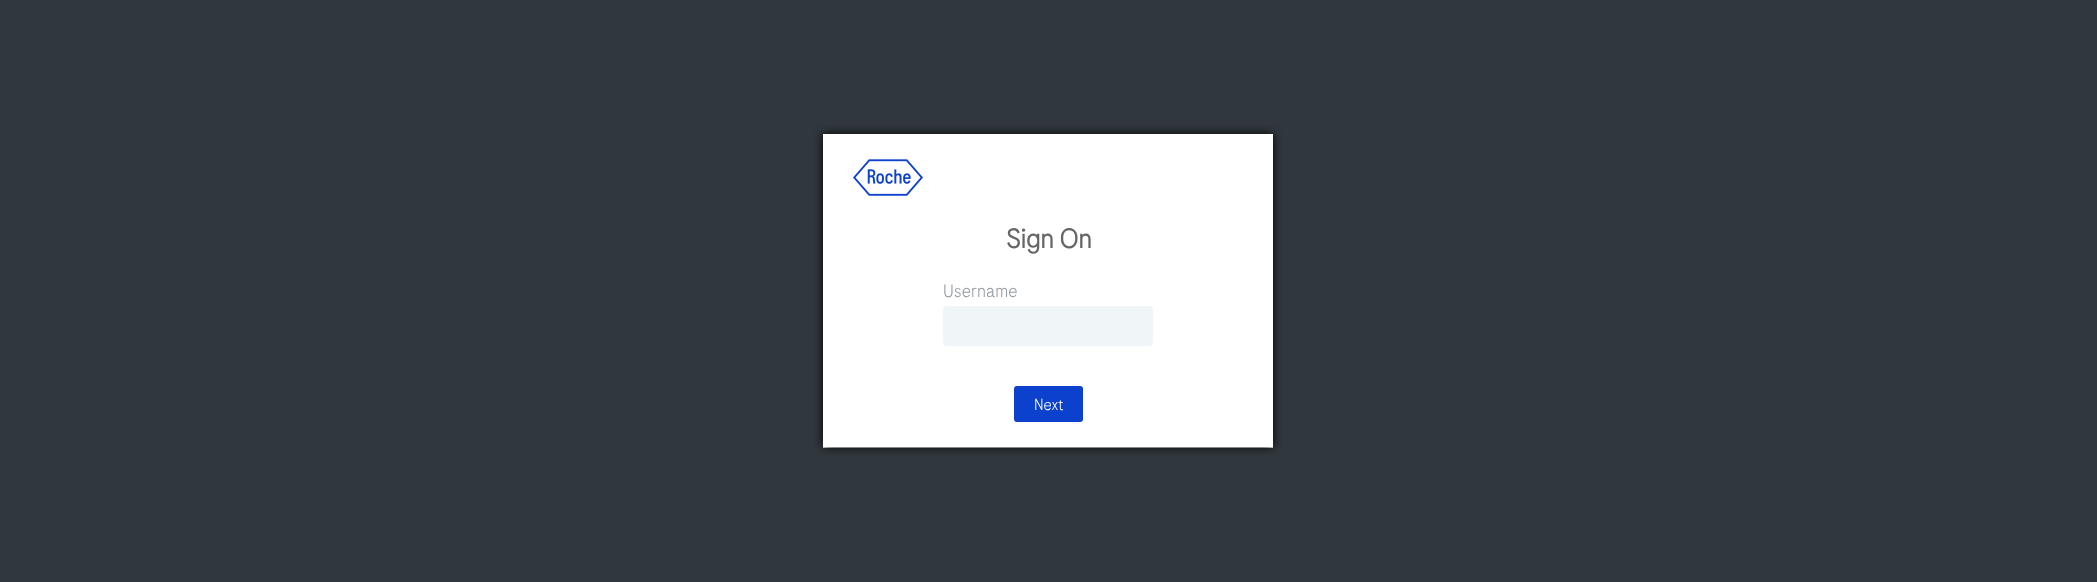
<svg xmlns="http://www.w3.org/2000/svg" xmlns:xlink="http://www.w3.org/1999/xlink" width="2097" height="582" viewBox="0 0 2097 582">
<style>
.cls-1{font:bold 27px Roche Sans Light;fill:#666666}
.cls-2{font:300 18px Roche Sans Light;fill:#929aa1}
.cls-3{font:300 16px Roche Sans Light;fill:#ffffff}
</style>
<rect width="100%" height="100%" fill="#30373d"/>
<rect fill="#ffffff" x="823" y="447" width="450" height="1"/>
<rect fill="#000000" filter="blur(5px)" x="823" y="134" width="450" height="313"/>
<rect fill="#ffffff" x="823" y="134" width="450" height="313"/>
<image xlink:href="image0.png" x="853" y="159" width="70" height="37"/>
<rect fill="#f0f6f7" stroke="#f0f6f7" x="943.5" y="306.5" width="209" height="39" rx="3.5"/>
<rect fill="#0b41cd" x="1014" y="386" width="69" height="36" rx="3"/>
<text class="cls-1" x="1006" y="248">Sign On</text>
<text class="cls-2" x="943" y="297">Username</text>
<text class="cls-3" x="1034" y="410">Next</text>
</svg>
